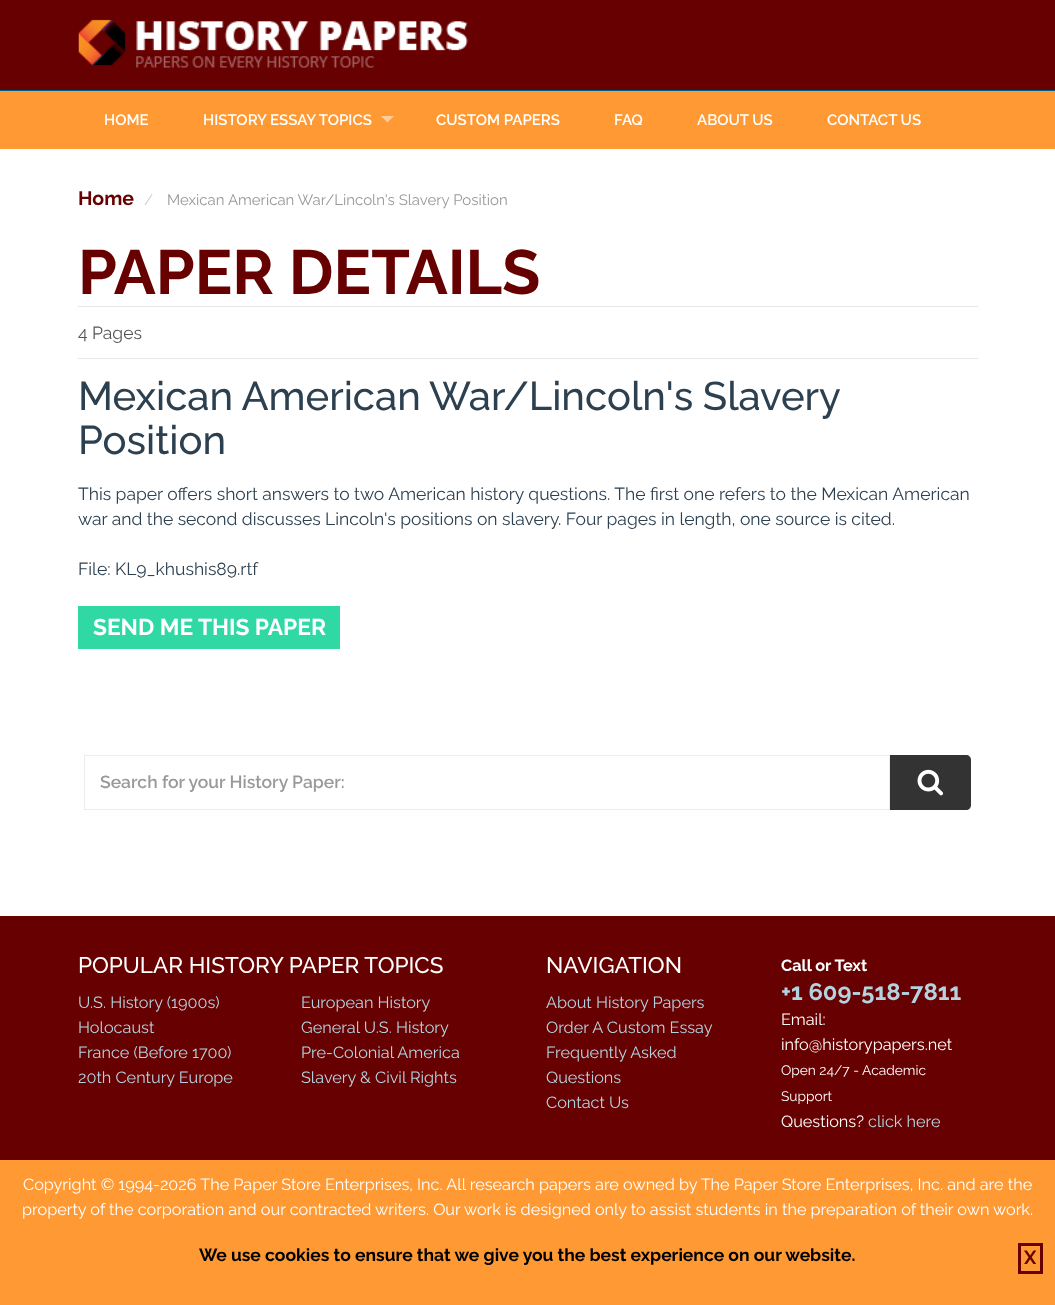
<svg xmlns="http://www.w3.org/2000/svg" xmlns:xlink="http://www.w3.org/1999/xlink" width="1055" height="1305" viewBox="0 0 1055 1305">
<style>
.cls-1{font:600 15px Raleway;fill:#ffffff}
.cls-2{font:bold 19.5px Raleway;fill:#670001}
.cls-3{font:15px Raleway;fill:#cccccc}
.cls-4{font:15px Raleway;fill:#999999}
.cls-5{font:bold 62.5px Raleway;fill:#670001}
.cls-6{font:17.5px Raleway;fill:#555555}
.cls-7{font:500 40px Raleway;fill:#2d4050}
.cls-8{font:17.5px Raleway;fill:#2d4050}
.cls-9{font:bold 22.75px Raleway;fill:#ffffff}
.cls-10{font:600 17.5px Raleway;fill:#999999}
.cls-11{font:500 22.5px Raleway;fill:#ffffff}
.cls-12{font:16.25px Raleway;fill:#b4d3e0}
.cls-13{font:bold 16.25px Raleway;fill:#ffffff}
.cls-14{font:bold 23.75px Raleway;fill:#b4d3e0}
.cls-15{font:16.25px Raleway;fill:#ffffff}
.cls-16{font:13.75px Raleway;fill:#ffffff}
.cls-17{font:bold 17.5px Raleway;fill:#000000}
.cls-18{font:bold 19px Raleway;fill:#670001}
</style>
<rect width="100%" height="100%" fill="#ffffff"/>
<rect fill="#670001" x="0" y="0" width="1055" height="90"/>
<rect fill="#006188" x="0" y="90" width="1055" height="1"/>
<image xlink:href="image0.png" x="78" y="19" width="390" height="49"/>
<rect fill="#ff9933" x="0" y="91" width="1055" height="58"/>
<path fill="#ffcc99" d="M381 116H394L387.5 122.5Z"/>
<rect fill="#e7e7e7" x="78" y="306" width="900" height="1"/>
<rect fill="#e7e7e7" x="78" y="358" width="900" height="1"/>
<rect fill="#30d9a4" x="78" y="606" width="262" height="43"/>
<rect fill="none" stroke="#ececec" x="84.5" y="755.5" width="805" height="54"/>
<path fill="#333333" d="M890 755H966C969 755 971 757 971 760V805C971 808 969 810 966 810H890Z"/>
<image xlink:href="image1.png" x="917" y="769" width="27" height="27"/>
<rect fill="#670001" x="0" y="916" width="1055" height="244"/>
<rect fill="#ff9933" x="0" y="1160" width="1055" height="145"/>
<rect fill="none" stroke="#670001" stroke-width="3" x="1019.5" y="1244.5" width="22" height="28"/>
<text class="cls-1" x="104" y="125">HOME</text>
<text class="cls-1" x="203" y="125">HISTORY ESSAY TOPICS</text>
<text class="cls-1" x="436" y="125">CUSTOM PAPERS</text>
<text class="cls-1" x="614" y="125">FAQ</text>
<text class="cls-1" x="697" y="125">ABOUT US</text>
<text class="cls-1" x="827" y="125">CONTACT US</text>
<text class="cls-2" x="78" y="205">Home</text>
<text class="cls-3" x="144" y="205">/</text>
<text class="cls-4" x="167" y="205">Mexican American War/Lincoln's Slavery Position</text>
<text class="cls-5" x="78" y="294">PAPER DETAILS</text>
<text class="cls-6" x="78" y="339">4 Pages</text>
<text class="cls-7"><tspan x="78" y="410" word-spacing="-0.5">Mexican American War/Lincoln's Slavery</tspan><tspan x="78" y="454">Position</tspan></text>
<text class="cls-8"><tspan x="78" y="500">This paper offers short answers to two American history questions. The first one refers to the Mexican American</tspan><tspan x="78" y="525">war and the second discusses Lincoln's positions on slavery. Four pages in length, one source is cited.</tspan></text>
<text class="cls-8" x="78" y="575">File: KL9_khushis89.rtf</text>
<text class="cls-9" x="93" y="635">SEND ME THIS PAPER</text>
<text class="cls-10" x="100" y="788">Search for your History Paper:</text>
<text class="cls-11" x="78" y="973">POPULAR HISTORY PAPER TOPICS</text>
<text class="cls-12" x="78" y="1008">U.S. History (1900s)</text>
<text class="cls-12" x="301" y="1008">European History</text>
<text class="cls-12" x="78" y="1033">Holocaust</text>
<text class="cls-12" x="301" y="1033">General U.S. History</text>
<text class="cls-12" x="78" y="1058">France (Before 1700)</text>
<text class="cls-12" x="301" y="1058">Pre-Colonial America</text>
<text class="cls-12" x="78" y="1083">20th Century Europe</text>
<text class="cls-12" x="301" y="1083">Slavery &amp; Civil Rights</text>
<text class="cls-11" x="546" y="973">NAVIGATION</text>
<text class="cls-12"><tspan x="546" y="1008">About History Papers</tspan><tspan x="546" y="1033">Order A Custom Essay</tspan><tspan x="546" y="1058">Frequently Asked</tspan><tspan x="546" y="1083">Questions</tspan><tspan x="546" y="1108">Contact Us</tspan></text>
<text class="cls-13" x="781" y="971">Call or Text</text>
<text class="cls-14" x="781" y="1000">+1 609-518-7811</text>
<text class="cls-15"><tspan x="781" y="1025">Email:</tspan><tspan x="781" y="1050">info@historypapers.net</tspan></text>
<text class="cls-16"><tspan x="781" y="1075">Open 24/7 - Academic</tspan><tspan x="781" y="1101">Support</tspan></text>
<text class="cls-15" x="781" y="1127">Questions?</text>
<text class="cls-12" x="868" y="1127">click here</text>
<text class="cls-15" x="23" y="1190">Copyright © 1994-2026 The Paper Store Enterprises, Inc. All research papers are owned by The Paper Store Enterprises, Inc. and are the</text>
<text class="cls-15" x="22" y="1215">property of the corporation and our contracted writers. Our work is designed only to assist students in the preparation of their own work.</text>
<text class="cls-17" x="199" y="1261">We use cookies to ensure that we give you the best experience on our website.</text>
<text class="cls-18" x="1024" y="1264">X</text>
</svg>
